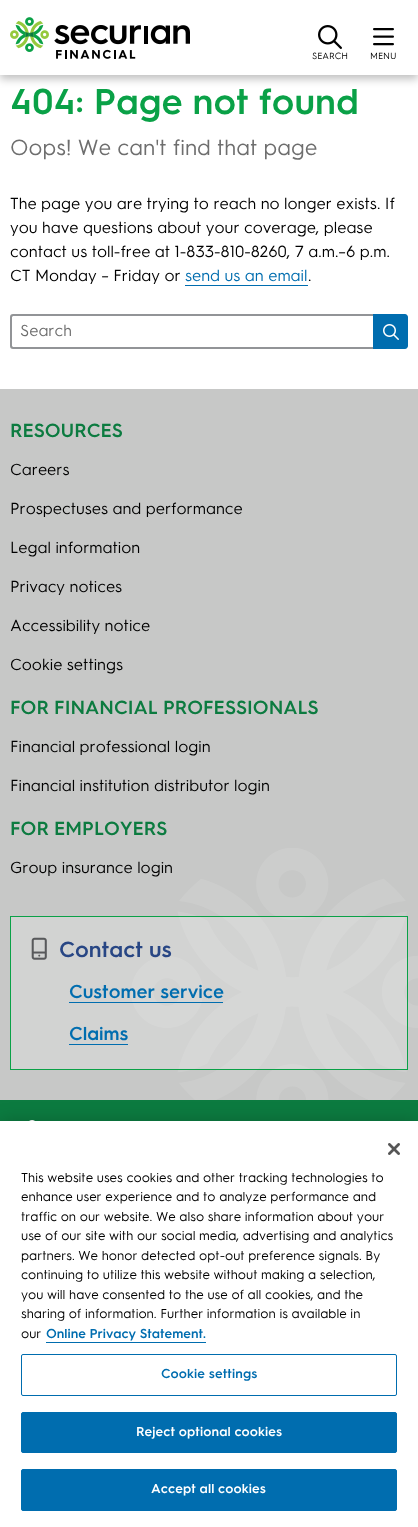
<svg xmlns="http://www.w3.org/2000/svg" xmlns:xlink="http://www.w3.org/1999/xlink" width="418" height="1527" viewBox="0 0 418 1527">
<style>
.cls-1{font:9px 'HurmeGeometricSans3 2';fill:#000000}
.cls-2{font:36px 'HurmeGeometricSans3';fill:#0aa147}
.cls-3{font:22px 'HurmeGeometricSans3 2';fill:#6e6e6e}
.cls-4{font:16px 'HurmeGeometricSans3 2';fill:#000000}
.cls-5{font:16px 'HurmeGeometricSans3 2';fill:#006daf}
.cls-6{font:16px 'HurmeGeometricSans3 2';fill:#6e6e6e}
.cls-7{font:19px 'HurmeGeometricSans3';fill:#0c7b40}
.cls-8{font:22px 'HurmeGeometricSans3';fill:#284684}
.cls-9{font:18.75px 'HurmeGeometricSans3';fill:#006daf}
.cls-10{font:13px 'HurmeGeometricSans3 2';fill:#000000}
.cls-11{font:13px 'HurmeGeometricSans3';fill:#006daf}
.cls-12{font:13px 'HurmeGeometricSans3';letter-spacing:0.1px;fill:#006daf}
.cls-13{font:13px 'HurmeGeometricSans3';letter-spacing:0.1px;fill:#ffffff}
</style>
<rect width="100%" height="100%" fill="#ffffff"/>
<rect fill="#000000" fill-opacity="0.25" filter="blur(4px)" x="0" y="4" width="418" height="75"/>
<rect fill="#ffffff" x="0" y="0" width="418" height="75"/>
<image xlink:href="image0.png" x="10" y="17" width="180" height="42"/>
<image xlink:href="image1.png" x="318" y="25" width="24" height="24"/>
<image xlink:href="image2.png" x="373" y="28" width="21" height="18"/>
<rect fill="#c7c8c7" x="0" y="389" width="418" height="711"/>
<rect fill="#006daf" x="185" y="285" width="123" height="1"/>
<path fill="#929497" fill-rule="evenodd" d="M13 314H373V349H13C11 349 10 348 10 346V317C10 315 11 314 13 314ZM13 316H373V347H13L12 346V317Z"/>
<path fill="#006daf" d="M373 314H405C406.5 314 408 315.5 408 317V346C408 347.5 406.5 349 405 349H373Z"/>
<image xlink:href="image3.png" x="383" y="324" width="16" height="16"/>
<image xlink:href="image4.png" x="131" y="848" width="287" height="252"/>
<rect fill="#ffffff" fill-opacity="0.2" stroke="#0aa147" x="10.5" y="916.5" width="397" height="153"/>
<image xlink:href="image5.png" x="31" y="937" width="16" height="23"/>
<rect fill="#006daf" x="69" y="1002" width="154" height="1"/>
<rect fill="#006daf" x="69" y="1044" width="59" height="1"/>
<rect fill="#0c7b40" x="0" y="1100" width="418" height="21"/>
<image xlink:href="image6.png" x="29" y="1120" width="6" height="1"/>
<rect fill="#000000" fill-opacity="0.2" filter="blur(9px)" x="0" y="1121" width="418" height="406"/>
<rect fill="#ffffff" x="0" y="1121" width="418" height="406"/>
<image xlink:href="image7.png" x="388" y="1143" width="12" height="12"/>
<rect fill="#006daf" x="46" y="1342" width="160" height="1"/>
<rect fill="none" stroke="#006daf" x="21.5" y="1354.5" width="375" height="41" rx="1.5"/>
<rect fill="#006daf" stroke="#006daf" x="21.5" y="1412.5" width="375" height="40" rx="1.5"/>
<rect fill="#006daf" stroke="#006daf" x="21.5" y="1469.5" width="375" height="41" rx="1.5"/>
<text class="cls-1" x="312" y="59">SEARCH</text>
<text class="cls-1" x="370" y="59">MENU</text>
<text class="cls-2" x="10" y="114">404: Page not found</text>
<text class="cls-3" x="10" y="155">Oops! We can't find that page</text>
<text class="cls-4"><tspan x="10" y="209">The page you are trying to reach no longer exists. If</tspan><tspan x="10" y="233">you have questions about your coverage, please</tspan><tspan x="10" y="257">contact us toll-free at 1-833-810-8260, 7 a.m.–6 p.m.</tspan><tspan x="10" y="281">CT Monday – Friday or</tspan></text>
<text class="cls-5" x="185" y="281">send us an email</text>
<text class="cls-4" x="308" y="281">.</text>
<text class="cls-6" x="20" y="336">Search</text>
<text class="cls-7" x="10" y="437">RESOURCES</text>
<text class="cls-4" x="10" y="475">Careers</text>
<text class="cls-4" x="10" y="514">Prospectuses and performance</text>
<text class="cls-4" x="10" y="553">Legal information</text>
<text class="cls-4" x="10" y="592">Privacy notices</text>
<text class="cls-4" x="10" y="631">Accessibility notice</text>
<text class="cls-4" x="10" y="670">Cookie settings</text>
<text class="cls-7" x="10" y="714">FOR FINANCIAL PROFESSIONALS</text>
<text class="cls-4" x="10" y="752">Financial professional login</text>
<text class="cls-4" x="10" y="791">Financial institution distributor login</text>
<text class="cls-7" x="10" y="835">FOR EMPLOYERS</text>
<text class="cls-4" x="10" y="873">Group insurance login</text>
<text class="cls-8" x="59" y="957">Contact us</text>
<text class="cls-9" x="69" y="998">Customer service</text>
<text class="cls-9" x="69" y="1040">Claims</text>
<text class="cls-10"><tspan x="21" y="1182">This website uses cookies and other tracking technologies to</tspan><tspan x="21" y="1201">enhance user experience and to analyze performance and</tspan><tspan x="21" y="1221">traffic on our website. We also share information about your</tspan><tspan x="21" y="1240">use of our site with our social media, advertising and analytics</tspan><tspan x="21" y="1260">partners. We honor detected opt-out preference signals. By</tspan><tspan x="21" y="1279">continuing to utilize this website without making a selection,</tspan><tspan x="21" y="1299">you will have consented to the use of all cookies, and the</tspan><tspan x="21" y="1318">sharing of information. Further information is available in</tspan><tspan x="21" y="1338">our</tspan></text>
<text class="cls-11" x="46" y="1338">Online Privacy Statement.</text>
<text class="cls-12" x="161" y="1378">Cookie settings</text>
<text class="cls-13" x="136" y="1436">Reject optional cookies</text>
<text class="cls-13" x="151" y="1493">Accept all cookies</text>
</svg>
